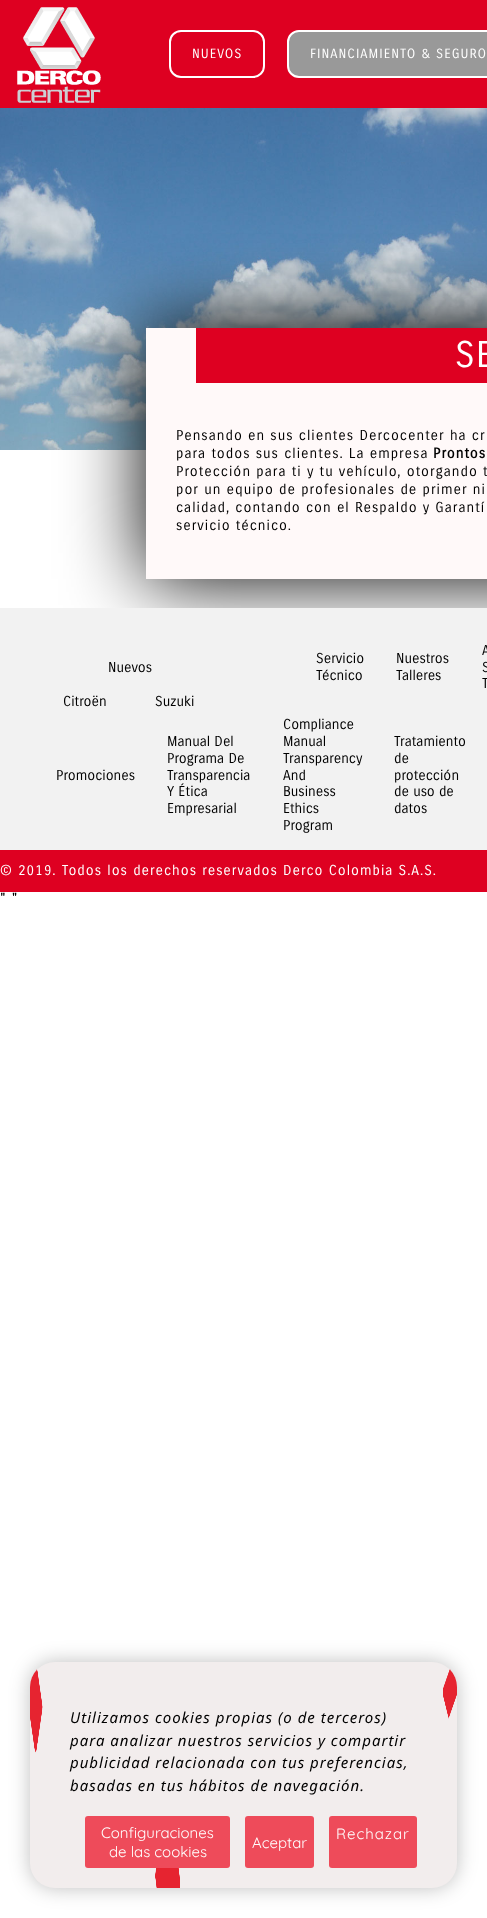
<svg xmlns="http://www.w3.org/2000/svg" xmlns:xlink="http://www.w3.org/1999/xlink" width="487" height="1918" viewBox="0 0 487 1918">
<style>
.cls-1{font:13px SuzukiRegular;letter-spacing:1px;fill:#ffffff}
.cls-2{font:36px SuzukiRegular;letter-spacing:1px;fill:#ffffff}
.cls-3{font:14px SuzukiRegular;letter-spacing:1px;fill:#000000}
.cls-4{font:bold 14px SuzukiRegular;letter-spacing:1px;fill:#000000}
.cls-5{font:14px SuzukiRegular;fill:#000000}
.cls-6{font:14px SuzukiRegular;letter-spacing:1px;fill:#ffffff}
.cls-7{font:italic 15px Noto Sans;letter-spacing:1px;fill:#000000}
.cls-8{font:15px Quicksand;fill:#ffffff}
.cls-9{font:15px Quicksand;letter-spacing:1px;fill:#ffffff}
</style>
<rect width="100%" height="100%" fill="#ffffff"/>
<rect fill="#de0021" x="0" y="0" width="487" height="108"/>
<image xlink:href="image0.png" x="17" y="7" width="84" height="96"/>
<rect fill="none" stroke="#ffffff" stroke-width="2" x="170" y="31" width="94" height="46" rx="11"/>
<rect fill="#999999" stroke="#ffffff" stroke-width="2" x="288" y="31" width="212" height="46" rx="11"/>
<image xlink:href="image1.png" x="0" y="108" width="487" height="342"/>
<rect fill="#000000" filter="blur(40px)" x="146" y="328" width="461" height="251"/>
<rect fill="#fff9f9" x="146" y="328" width="341" height="251"/>
<rect fill="#de0021" x="196" y="328" width="291" height="55"/>
<rect fill="#de0021" x="0" y="850" width="487" height="42"/>
<rect fill="#f2f2f2" x="0" y="608" width="487" height="242"/>
<rect fill="#000000" fill-opacity="0.25" filter="blur(10px)" x="30" y="1662" width="427" height="226" rx="25"/>
<rect fill="#f2eded" x="30" y="1662" width="427" height="226" rx="25"/>
<image xlink:href="image2.png" x="30" y="1669" width="427" height="219"/>
<rect fill="#ee4b5a" x="85" y="1816" width="145" height="52" rx="3"/>
<rect fill="#ee4b5a" x="329" y="1816" width="88" height="52" rx="3"/>
<rect fill="#ee4b5a" x="245" y="1816" width="69" height="52" rx="3"/>
<text class="cls-1" x="192" y="58">NUEVOS</text>
<text class="cls-1" x="310" y="58">FINANCIAMIENTO &amp; SEGURO</text>
<text class="cls-2" x="455" y="367">SE</text>
<text class="cls-3"><tspan x="176" y="440">Pensando en sus clientes Dercocenter ha cr</tspan><tspan x="176" y="458">para todos sus clientes. La empresa</tspan></text>
<text class="cls-4" x="433" y="458">Prontos</text>
<text class="cls-3"><tspan x="176" y="476">Protección para ti y tu vehículo, otorgando t</tspan><tspan x="176" y="494">por un equipo de profesionales de primer ni</tspan><tspan x="176" y="512">calidad, contando con el Respaldo y Garantí</tspan><tspan x="176" y="530">servicio técnico.</tspan></text>
<text class="cls-5"><tspan x="316" y="663">Servicio</tspan><tspan x="316" y="680">Técnico</tspan></text>
<text class="cls-5"><tspan x="396" y="663">Nuestros</tspan><tspan x="396" y="680">Talleres</tspan></text>
<text class="cls-5"><tspan x="482" y="655">A</tspan><tspan x="482" y="672">S</tspan><tspan x="482" y="688">T</tspan></text>
<text class="cls-5" x="108" y="672">Nuevos</text>
<text class="cls-5" x="63" y="706">Citroën</text>
<text class="cls-5" x="155" y="706">Suzuki</text>
<text class="cls-5" x="56" y="780">Promociones</text>
<text class="cls-5"><tspan x="167" y="746">Manual Del</tspan><tspan x="167" y="763">Programa De</tspan><tspan x="167" y="780">Transparencia</tspan><tspan x="167" y="796">Y Ética</tspan><tspan x="167" y="813">Empresarial</tspan></text>
<text class="cls-5"><tspan x="283" y="729">Compliance</tspan><tspan x="283" y="746">Manual</tspan><tspan x="283" y="763">Transparency</tspan><tspan x="283" y="780">And</tspan><tspan x="283" y="796">Business</tspan><tspan x="283" y="813">Ethics</tspan><tspan x="283" y="830">Program</tspan></text>
<text class="cls-5"><tspan x="394" y="746">Tratamiento</tspan><tspan x="394" y="763">de</tspan><tspan x="394" y="780">protección</tspan><tspan x="394" y="796">de uso de</tspan><tspan x="394" y="813">datos</tspan></text>
<text class="cls-6" x="0" y="875">© 2019. Todos los derechos reservados Derco Colombia S.A.S.</text>
<text class="cls-3" x="0" y="903">" "</text>
<text class="cls-7"><tspan x="70" y="1723">Utilizamos cookies propias (o de terceros)</tspan><tspan x="70" y="1746">para analizar nuestros servicios y compartir</tspan><tspan x="70" y="1768">publicidad relacionada con tus preferencias,</tspan><tspan x="70" y="1791">basadas en tus hábitos de navegación.</tspan></text>
<text class="cls-8" x="101" y="1838">Configuraciones</text>
<text class="cls-8" x="109" y="1857">de las cookies</text>
<text class="cls-9" x="336" y="1839">Rechazar</text>
<text class="cls-8" x="252" y="1848">Aceptar</text>
</svg>
